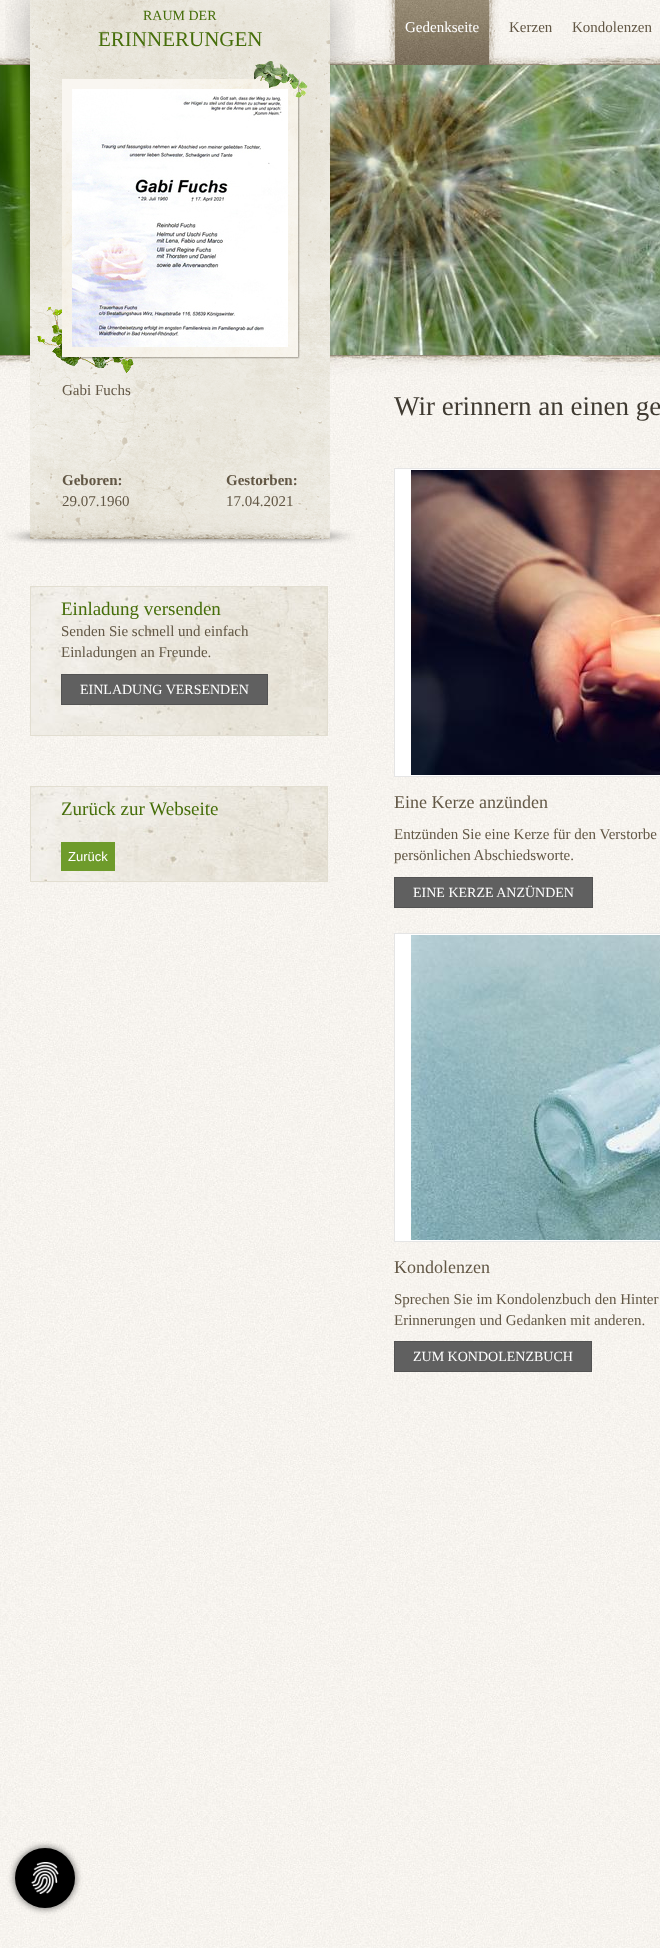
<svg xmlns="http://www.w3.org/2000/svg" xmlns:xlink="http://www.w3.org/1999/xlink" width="660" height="1948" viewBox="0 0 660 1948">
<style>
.cls-1{font:14px Liberation Serif;fill:#466e0a}
.cls-2{font:21px Liberation Serif;fill:#466e0a}
.cls-3{font:15px Liberation Serif;fill:#625745}
.cls-4{font:bold 15px Liberation Serif;fill:#625745}
.cls-5{font:19px Liberation Serif;fill:#466e0a}
.cls-6{font:14px Liberation Serif;fill:#ffffff}
.cls-7{font:13px Liberation Sans;fill:#ffffff}
.cls-8{font:15px Liberation Serif;fill:#ffffff}
.cls-9{font:27px Liberation Serif;fill:#3f3a31}
.cls-10{font:18px Liberation Serif;fill:#625745}
</style>
<rect width="100%" height="100%" fill="#ffffff"/>
<image xlink:href="image0.png" x="0" y="417" width="660" height="1531"/>
<image xlink:href="image1.png" x="0" y="0" width="660" height="417"/>
<image xlink:href="image11.png" x="0" y="65" width="660" height="290"/>
<image xlink:href="image2.png" x="5" y="0" width="350" height="544"/>
<image xlink:href="image3.png" x="72" y="89" width="216" height="258"/>
<image xlink:href="image4.png" x="31" y="587" width="296" height="148"/>
<rect fill="none" stroke="#e2ded1" x="30.5" y="586.5" width="297" height="149"/>
<rect fill="#606060" stroke="#535353" x="61.5" y="674.5" width="206" height="30"/>
<image xlink:href="image5.png" x="31" y="787" width="296" height="94"/>
<rect fill="none" stroke="#e2ded1" x="30.5" y="786.5" width="297" height="95"/>
<rect fill="#6e9b2b" x="61" y="842" width="54" height="29"/>
<image xlink:href="image6.png" x="385" y="0" width="10" height="65"/>
<image xlink:href="image7.png" x="489" y="0" width="10" height="65"/>
<image xlink:href="image8.png" x="395" y="0" width="94" height="65"/>
<rect fill="#ffffff" stroke="#e5e5e5" x="394.5" y="468.5" width="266" height="308"/>
<image xlink:href="image9.png" x="411" y="470" width="249" height="305"/>
<rect fill="#606060" stroke="#535353" x="394.5" y="877.5" width="198" height="30"/>
<rect fill="#ffffff" stroke="#e5e5e5" x="394.5" y="933.5" width="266" height="308"/>
<image xlink:href="image10.png" x="411" y="935" width="249" height="305"/>
<rect fill="#606060" stroke="#535353" x="394.5" y="1341.5" width="197" height="30"/>
<rect fill="#000000" fill-opacity="0.5" filter="blur(3px)" x="14" y="1847" width="62" height="62" rx="31"/>
<circle fill="#000000" cx="45" cy="1878" r="30"/>
<image xlink:href="image12.png" x="31" y="1862" width="28" height="32"/>
<text class="cls-1" x="143" y="20">RAUM DER</text>
<text class="cls-2" x="98" y="46">ERINNERUNGEN</text>
<text class="cls-3" x="62" y="395">Gabi Fuchs</text>
<text class="cls-4" x="62" y="485">Geboren:</text>
<text class="cls-3" x="62" y="506">29.07.1960</text>
<text class="cls-4" x="226" y="485">Gestorben:</text>
<text class="cls-3" x="226" y="506">17.04.2021</text>
<text class="cls-5" x="61" y="615">Einladung versenden</text>
<text class="cls-3"><tspan x="61" y="636">Senden Sie schnell und einfach</tspan><tspan x="61" y="657">Einladungen an Freunde.</tspan></text>
<text class="cls-6" x="80" y="694">EINLADUNG VERSENDEN</text>
<text class="cls-5" x="61" y="815">Zurück zur Webseite</text>
<text class="cls-7" x="68" y="861">Zurück</text>
<text class="cls-8" x="405" y="32">Gedenkseite</text>
<text class="cls-3" x="509" y="32">Kerzen</text>
<text class="cls-3" x="572" y="32">Kondolenzen</text>
<text class="cls-9" x="394" y="415">Wir erinnern an einen ge</text>
<text class="cls-10" x="394" y="808">Eine Kerze anzünden</text>
<text class="cls-3"><tspan x="394" y="839">Entzünden Sie eine Kerze für den Verstorbe</tspan><tspan x="394" y="860">persönlichen Abschiedsworte.</tspan></text>
<text class="cls-6" x="413" y="897">EINE KERZE ANZÜNDEN</text>
<text class="cls-10" x="394" y="1273">Kondolenzen</text>
<text class="cls-3"><tspan x="394" y="1304">Sprechen Sie im Kondolenzbuch den Hinter</tspan><tspan x="394" y="1325">Erinnerungen und Gedanken mit anderen.</tspan></text>
<text class="cls-6" x="413" y="1361">ZUM KONDOLENZBUCH</text>
</svg>
